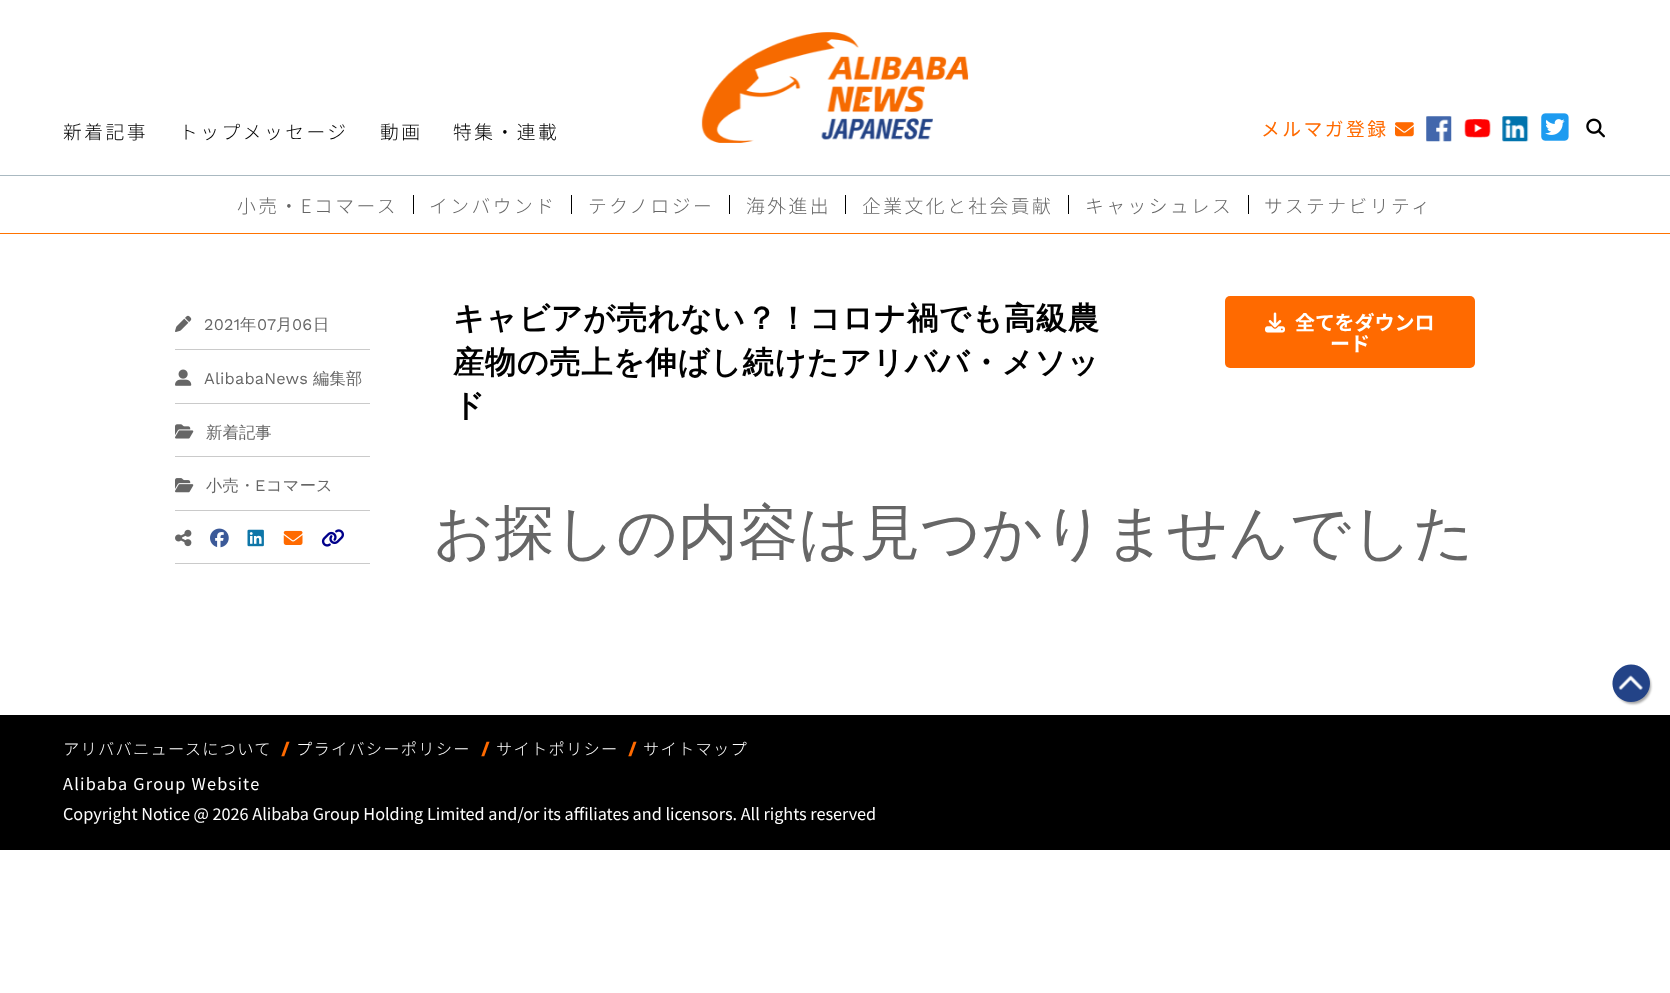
<svg xmlns="http://www.w3.org/2000/svg" xmlns:xlink="http://www.w3.org/1999/xlink" width="1670" height="993" viewBox="0 0 1670 993">
<style>
.cls-1{font:300 18.75px Noto Sans JP;letter-spacing:2.5px;fill:#000000}
.cls-2{font:18.75px Noto Sans JP;letter-spacing:2.5px;fill:#ff6a00}
.cls-3{font:300 18.75px Noto Sans JP;letter-spacing:2.5px;fill:#666666}
.cls-4{font:16.25px Work Sans;letter-spacing:0.2px;fill:#666666}
.cls-5{font:500 16.25px WenQuanYi Zen Hei;letter-spacing:0.2px;fill:#666666}
.cls-6{font:bold 31.25px WenQuanYi Zen Hei;letter-spacing:0.6px;fill:#000000}
.cls-7{font:bold 20px Noto Sans JP;fill:#ffffff}
.cls-8{font:500 60px WenQuanYi Zen Hei;letter-spacing:0.2px;fill:#666666}
.cls-9{font:300 16.25px Noto Sans JP;letter-spacing:1.25px;fill:#ffffff}
.cls-10{font:bold 18.75px Work Sans;letter-spacing:1.25px;fill:#ff6a00}
.cls-11{font:16.25px Noto Sans JP;letter-spacing:1.25px;fill:#ffffff}
.cls-12{font:16.25px Noto Sans JP;fill:#ffffff}
</style>
<rect width="100%" height="100%" fill="#ffffff"/>
<rect fill="#aab9c1" x="0" y="175" width="1670" height="1"/>
<image xlink:href="image0.png" x="701" y="32" width="268" height="111"/>
<image xlink:href="image1.png" x="1395" y="122" width="19" height="15"/>
<image xlink:href="image2.png" x="1426" y="116" width="26" height="26"/>
<image xlink:href="image3.png" x="1464" y="119" width="27" height="19"/>
<image xlink:href="image4.png" x="1502" y="116" width="27" height="26"/>
<image xlink:href="image5.png" x="1541" y="113" width="28" height="28"/>
<image xlink:href="image6.png" x="1586" y="118" width="19" height="20"/>
<rect fill="#ff7300" x="0" y="233" width="1670" height="1"/>
<rect fill="#000000" x="413" y="195" width="1" height="19"/>
<rect fill="#000000" x="571" y="195" width="1" height="19"/>
<rect fill="#000000" x="729" y="195" width="1" height="19"/>
<rect fill="#000000" x="845" y="195" width="1" height="19"/>
<rect fill="#000000" x="1068" y="195" width="1" height="19"/>
<rect fill="#000000" x="1248" y="195" width="1" height="19"/>
<image xlink:href="image7.png" x="175" y="315" width="17" height="17"/>
<rect fill="#cacaca" x="175" y="349" width="195" height="1"/>
<image xlink:href="image8.png" x="175" y="369" width="17" height="17"/>
<rect fill="#cacaca" x="175" y="403" width="195" height="1"/>
<image xlink:href="image9.png" x="175" y="424" width="19" height="15"/>
<rect fill="#cacaca" x="175" y="456" width="195" height="1"/>
<image xlink:href="image10.png" x="175" y="478" width="19" height="15"/>
<rect fill="#cacaca" x="175" y="510" width="195" height="1"/>
<image xlink:href="image11.png" x="175" y="529" width="17" height="18"/>
<image xlink:href="image12.png" x="210" y="528" width="19" height="20"/>
<image xlink:href="image13.png" x="247" y="529" width="17" height="18"/>
<image xlink:href="image14.png" x="283" y="530" width="20" height="15"/>
<image xlink:href="image15.png" x="321" y="529" width="23" height="18"/>
<rect fill="#cacaca" x="175" y="563" width="195" height="1"/>
<rect fill="#ff6a00" x="1225" y="296" width="250" height="72" rx="5"/>
<image xlink:href="image16.png" x="1265" y="312" width="20" height="21"/>
<rect fill="#000000" fill-opacity="0.35" filter="blur(1px)" x="1615" y="668" width="36" height="36" rx="18"/>
<path fill="#234387" d="M1631 702C1649 702 1657 679.5 1642.5 668.5C1639.5 666 1635.5 664.5 1631 664.5C1627 664.5 1623 666 1620 668.5C1605.5 679.5 1613.5 702 1631 702Z"/>
<image xlink:href="image17.png" x="1618" y="675" width="25" height="15"/>
<rect fill="#000000" x="0" y="715" width="1670" height="135"/>
<text class="cls-1" x="63" y="139">新着記事</text>
<text class="cls-1" x="179" y="139">トップメッセージ</text>
<text class="cls-1" x="380" y="139">動画</text>
<text class="cls-1" x="453" y="139">特集・連載</text>
<text class="cls-2" x="1261" y="136">メルマガ登録</text>
<text class="cls-3" x="237" y="213">小売・Eコマース</text>
<text class="cls-3" x="429" y="213">インバウンド</text>
<text class="cls-3" x="588" y="213">テクノロジー</text>
<text class="cls-3" x="746" y="213">海外進出</text>
<text class="cls-3" x="862" y="213">企業文化と社会貢献</text>
<text class="cls-3" x="1085" y="213">キャッシュレス</text>
<text class="cls-3" x="1264" y="213">サステナビリティ</text>
<text class="cls-4" x="204" y="330">2021</text>
<text class="cls-5" x="240" y="330">年</text>
<text class="cls-4" x="257" y="330">07</text>
<text class="cls-5" x="276" y="330">月</text>
<text class="cls-4" x="292" y="330">06</text>
<text class="cls-5" x="313" y="330">日</text>
<text class="cls-4" x="204" y="384">AlibabaNews</text>
<text class="cls-5" x="313" y="384">編集部</text>
<text class="cls-5" x="206" y="438">新着記事</text>
<text class="cls-5" x="206" y="491">小売・</text>
<text class="cls-4" x="255" y="491">E</text>
<text class="cls-5" x="266" y="491">コマース</text>
<text class="cls-6"><tspan x="453" y="329">キャビアが売れない？！コロナ禍でも高級農</tspan><tspan x="453" y="373">産物の売上を伸ばし続けたアリババ・メソッ</tspan><tspan x="453" y="416">ド</tspan></text>
<text class="cls-7" x="1295" y="330">全てをダウンロ</text>
<text class="cls-7" x="1330" y="351">ード</text>
<text class="cls-8" x="433" y="553">お探しの内容は見つかりませんでした</text>
<text class="cls-9" x="63" y="755">アリババニュースについて</text>
<text class="cls-10" x="281" y="755">/</text>
<text class="cls-9" x="296" y="755">プライバシーポリシー</text>
<text class="cls-10" x="481" y="755">/</text>
<text class="cls-9" x="496" y="755">サイトポリシー</text>
<text class="cls-10" x="628" y="755">/</text>
<text class="cls-9" x="643" y="755">サイトマップ</text>
<text class="cls-11" x="63" y="790">Alibaba Group Website</text>
<text class="cls-12" x="63" y="820">Copyright Notice @ 2026 Alibaba Group Holding Limited and/or its affiliates and licensors. All rights reserved</text>
</svg>
